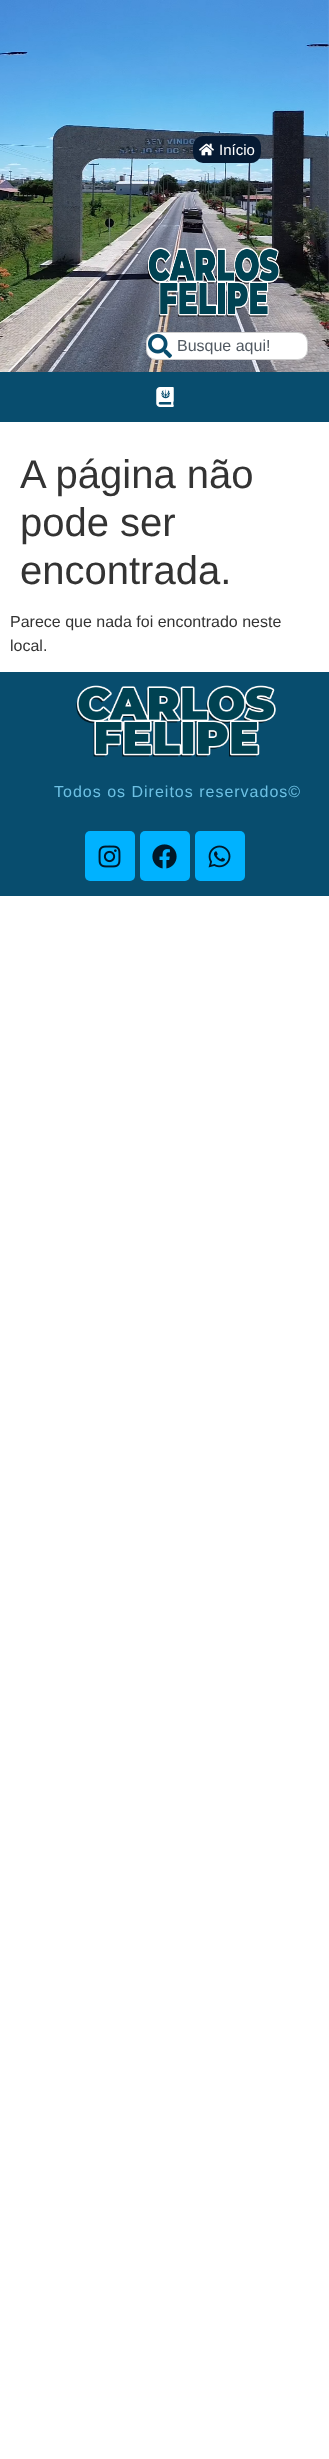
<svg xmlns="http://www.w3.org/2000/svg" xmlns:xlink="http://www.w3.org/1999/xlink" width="329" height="2459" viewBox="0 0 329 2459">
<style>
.cls-1{font:15px Liberation Sans;fill:#ffffff}
.cls-2{font:16px Liberation Sans;fill:#515962}
.cls-3{font:40px Liberation Sans;fill:#333333}
.cls-4{font:16px Liberation Sans;fill:#333333}
.cls-5{font:16px Liberation Sans;letter-spacing:1px;fill:#6ec1e4}
</style>
<rect width="100%" height="100%" fill="#ffffff"/>
<image xlink:href="image1.png" x="0" y="0" width="329" height="372"/>
<rect fill="#061a33" x="193" y="136" width="68" height="27" rx="10"/>
<image xlink:href="image0.png" x="199" y="143" width="15" height="13"/>
<image xlink:href="image2.png" x="147" y="247" width="133" height="70"/>
<rect fill="#ffffff" stroke="#cdcdcd" x="146.5" y="332.5" width="161" height="27" rx="9.5"/>
<image xlink:href="image3.png" x="148" y="334" width="24" height="24"/>
<rect fill="#084d6e" x="0" y="372" width="329" height="50"/>
<image xlink:href="image4.png" x="156" y="387" width="18" height="20"/>
<rect fill="#084d6e" x="0" y="672" width="329" height="224"/>
<image xlink:href="image5.png" x="76" y="685" width="200" height="72"/>
<rect fill="#00b2ff" x="85" y="831" width="50" height="50" rx="5"/>
<image xlink:href="image6.png" x="98" y="845" width="23" height="23"/>
<rect fill="#00b2ff" x="140" y="831" width="50" height="50" rx="5"/>
<image xlink:href="image7.png" x="152" y="844" width="25" height="25"/>
<rect fill="#00b2ff" x="195" y="831" width="50" height="50" rx="5"/>
<image xlink:href="image8.png" x="208" y="845" width="23" height="23"/>
<text class="cls-1" x="219" y="155">Início</text>
<text class="cls-2" x="177" y="351">Busque aqui!</text>
<text class="cls-3"><tspan x="20" y="488">A página não</tspan><tspan x="20" y="536">pode ser</tspan><tspan x="20" y="584">encontrada.</tspan></text>
<text class="cls-4"><tspan x="10" y="627">Parece que nada foi encontrado neste</tspan><tspan x="10" y="651">local.</tspan></text>
<text class="cls-5" x="54" y="797">Todos os Direitos reservados©</text>
</svg>
